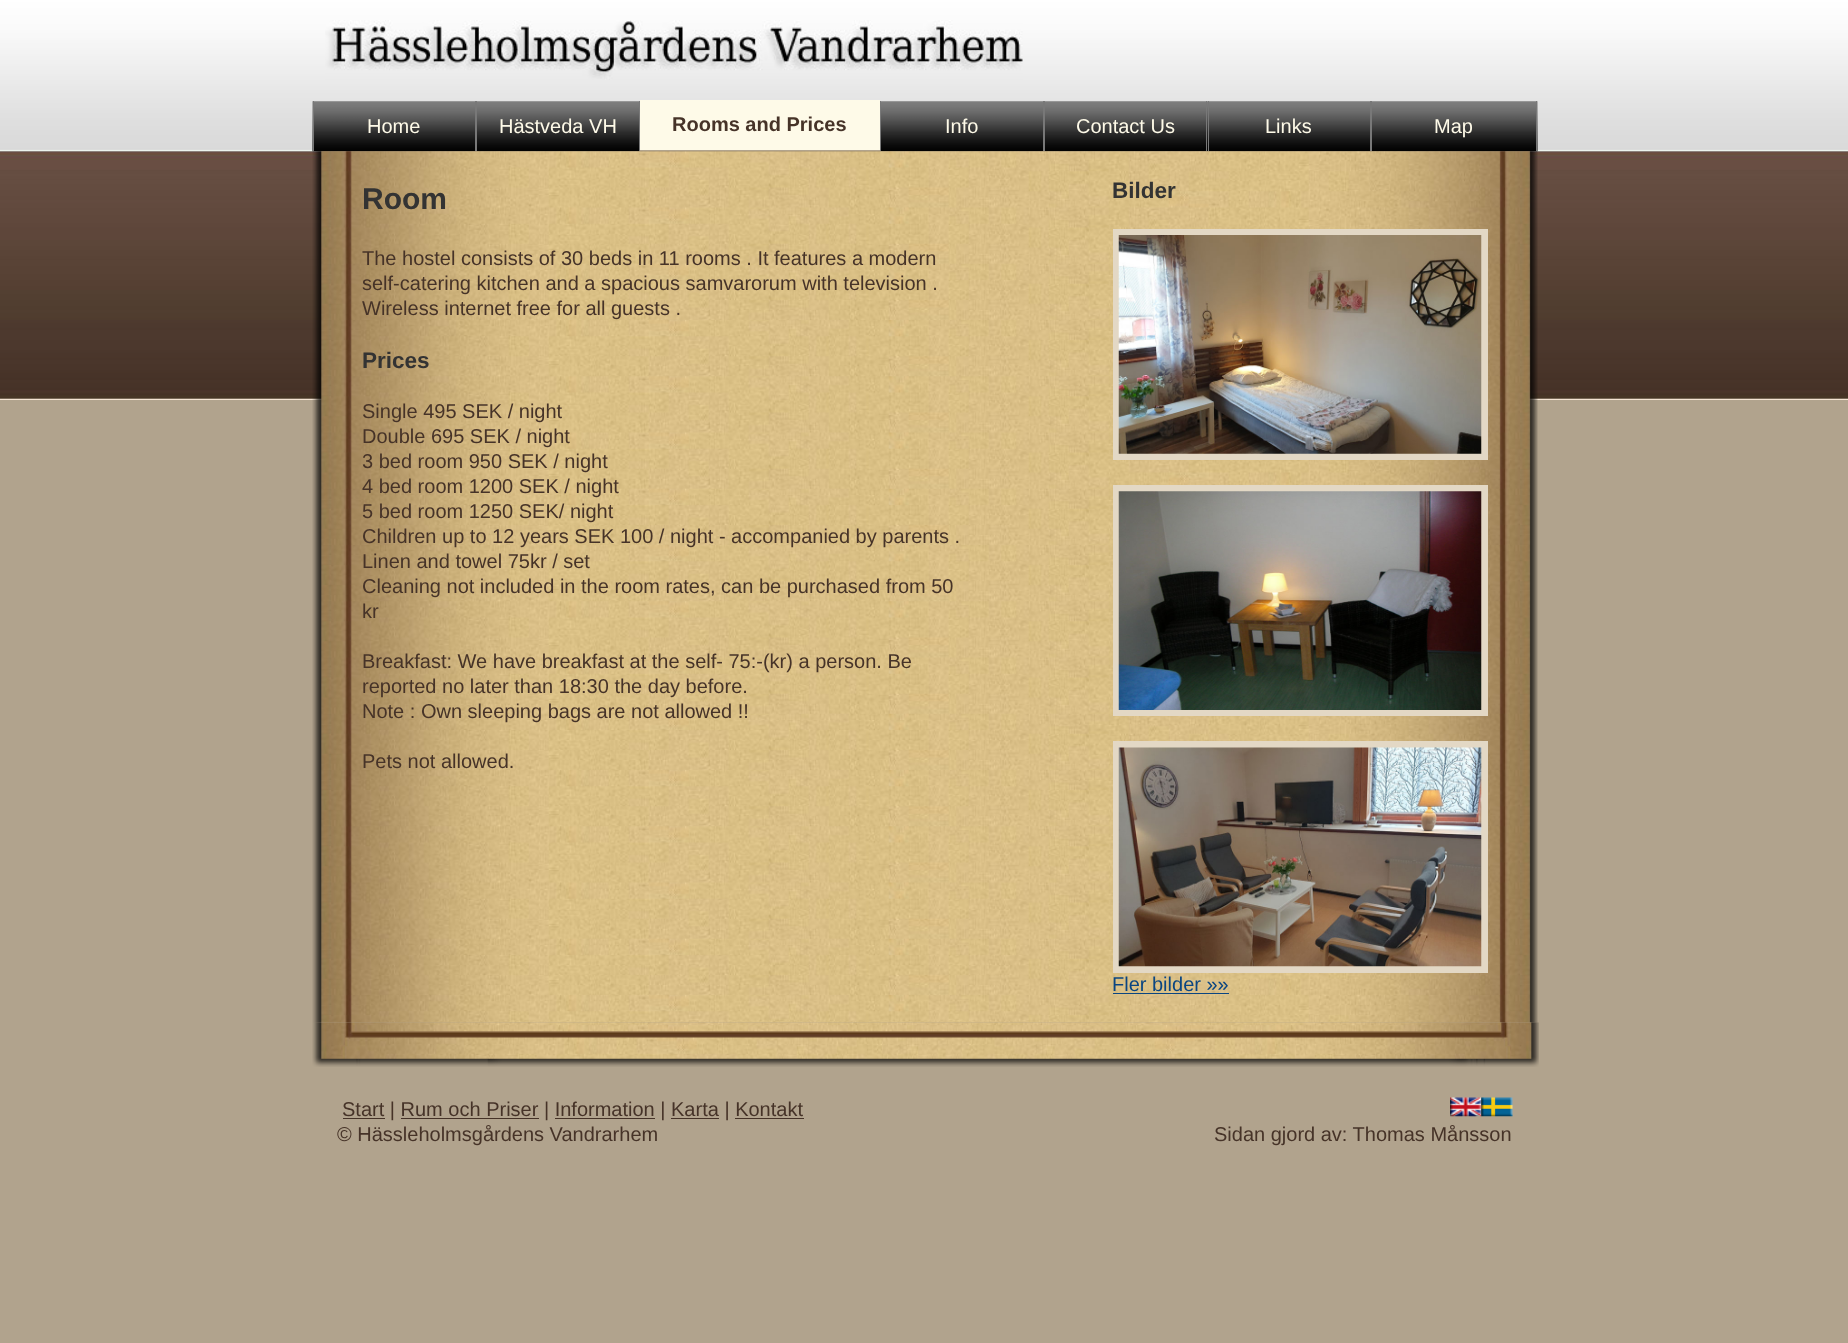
<svg xmlns="http://www.w3.org/2000/svg" xmlns:xlink="http://www.w3.org/1999/xlink" width="1848" height="1343" viewBox="0 0 1848 1343">
<style>
.cls-1{font:20px Liberation Sans;fill:#fefae8}
.cls-2{font:bold 20px Liberation Sans;fill:#463328}
.cls-3{font:bold 30px Liberation Sans;fill:#333333}
.cls-4{font:20px Liberation Sans;fill:#463328}
.cls-5{font:bold 22.5px Liberation Sans;fill:#333333}
.cls-6{font:20px Liberation Sans;fill:#0a4581}
</style>
<rect width="100%" height="100%" fill="#b1a38d"/>
<image xlink:href="image0.png" x="0" y="0" width="1848" height="400"/>
<image xlink:href="image1.png" x="325" y="20" width="698" height="60"/>
<image xlink:href="image2.png" x="312" y="101" width="1226" height="51"/>
<rect fill="#787878" x="475" y="101" width="2" height="50"/>
<rect fill="#787878" x="313" y="101" width="1" height="50"/>
<rect fill="#787878" x="639" y="101" width="1" height="50"/>
<rect fill="#fefae8" x="640" y="100" width="240" height="50"/>
<rect fill="#b1a38d" x="640" y="150" width="240" height="1"/>
<rect fill="#787878" x="1043" y="101" width="2" height="50"/>
<rect fill="#787878" x="880" y="101" width="1" height="50"/>
<rect fill="#787878" x="1206" y="101" width="1" height="50"/>
<rect fill="#787878" x="1370" y="101" width="2" height="50"/>
<rect fill="#787878" x="1208" y="101" width="1" height="50"/>
<rect fill="#787878" x="1536" y="101" width="1" height="50"/>
<image xlink:href="image3.png" x="312" y="151" width="1226" height="872"/>
<rect fill="#e3d8c5" x="1113" y="229" width="375" height="231"/>
<image xlink:href="image4.png" x="1118" y="235" width="364" height="219"/>
<rect fill="#e3d8c5" x="1113" y="485" width="375" height="231"/>
<image xlink:href="image5.png" x="1118" y="491" width="364" height="219"/>
<rect fill="#e3d8c5" x="1113" y="741" width="375" height="232"/>
<image xlink:href="image6.png" x="1118" y="747" width="364" height="220"/>
<rect fill="#0a4581" x="1113" y="993" width="116" height="1"/>
<image xlink:href="image7.png" x="312" y="1022" width="1227" height="45"/>
<rect fill="#463328" x="343" y="1118" width="42" height="1"/>
<rect fill="#463328" x="401" y="1118" width="138" height="1"/>
<rect fill="#463328" x="555" y="1118" width="100" height="1"/>
<rect fill="#463328" x="671" y="1118" width="48" height="1"/>
<rect fill="#463328" x="735" y="1118" width="69" height="1"/>
<image xlink:href="image8.png" x="1450" y="1097" width="32" height="20"/>
<image xlink:href="image9.png" x="1481" y="1097" width="32" height="20"/>
<text class="cls-1" x="367" y="133">Home</text>
<text class="cls-1" x="499" y="133">Hästveda VH</text>
<text class="cls-2" x="672" y="131">Rooms and Prices</text>
<text class="cls-1" x="945" y="133">Info</text>
<text class="cls-1" x="1076" y="133">Contact Us</text>
<text class="cls-1" x="1265" y="133">Links</text>
<text class="cls-1" x="1434" y="133">Map</text>
<text class="cls-3" x="362" y="209">Room</text>
<text class="cls-4"><tspan x="362" y="265">The hostel consists of 30 beds in 11 rooms . It features a modern</tspan><tspan x="362" y="290">self-catering kitchen and a spacious samvarorum with television .</tspan><tspan x="362" y="315">Wireless internet free for all guests .</tspan></text>
<text class="cls-5" x="362" y="368">Prices</text>
<text class="cls-4"><tspan x="362" y="418">Single 495 SEK / night</tspan><tspan x="362" y="443">Double 695 SEK / night</tspan><tspan x="362" y="468">3 bed room 950 SEK / night</tspan><tspan x="362" y="493">4 bed room 1200 SEK / night</tspan><tspan x="362" y="518">5 bed room 1250 SEK/ night</tspan><tspan x="362" y="543">Children up to 12 years SEK 100 / night - accompanied by parents .</tspan><tspan x="362" y="568">Linen and towel 75kr / set</tspan><tspan x="362" y="593">Cleaning not included in the room rates, can be purchased from 50</tspan><tspan x="362" y="618">kr</tspan></text>
<text class="cls-4"><tspan x="362" y="668">Breakfast: We have breakfast at the self- 75:-(kr) a person. Be</tspan><tspan x="362" y="693">reported no later than 18:30 the day before.</tspan><tspan x="362" y="718">Note : Own sleeping bags are not allowed !!</tspan></text>
<text class="cls-4" x="362" y="768">Pets not allowed.</text>
<text class="cls-5" x="1112" y="198">Bilder</text>
<text class="cls-6" x="1112" y="991">Fler bilder »»</text>
<text class="cls-4" x="342" y="1116">Start | Rum och Priser | Information | Karta | Kontakt</text>
<text class="cls-4" x="337" y="1141">© Hässleholmsgårdens Vandrarhem</text>
<text class="cls-4" x="1214" y="1141">Sidan gjord av: Thomas Månsson</text>
</svg>
